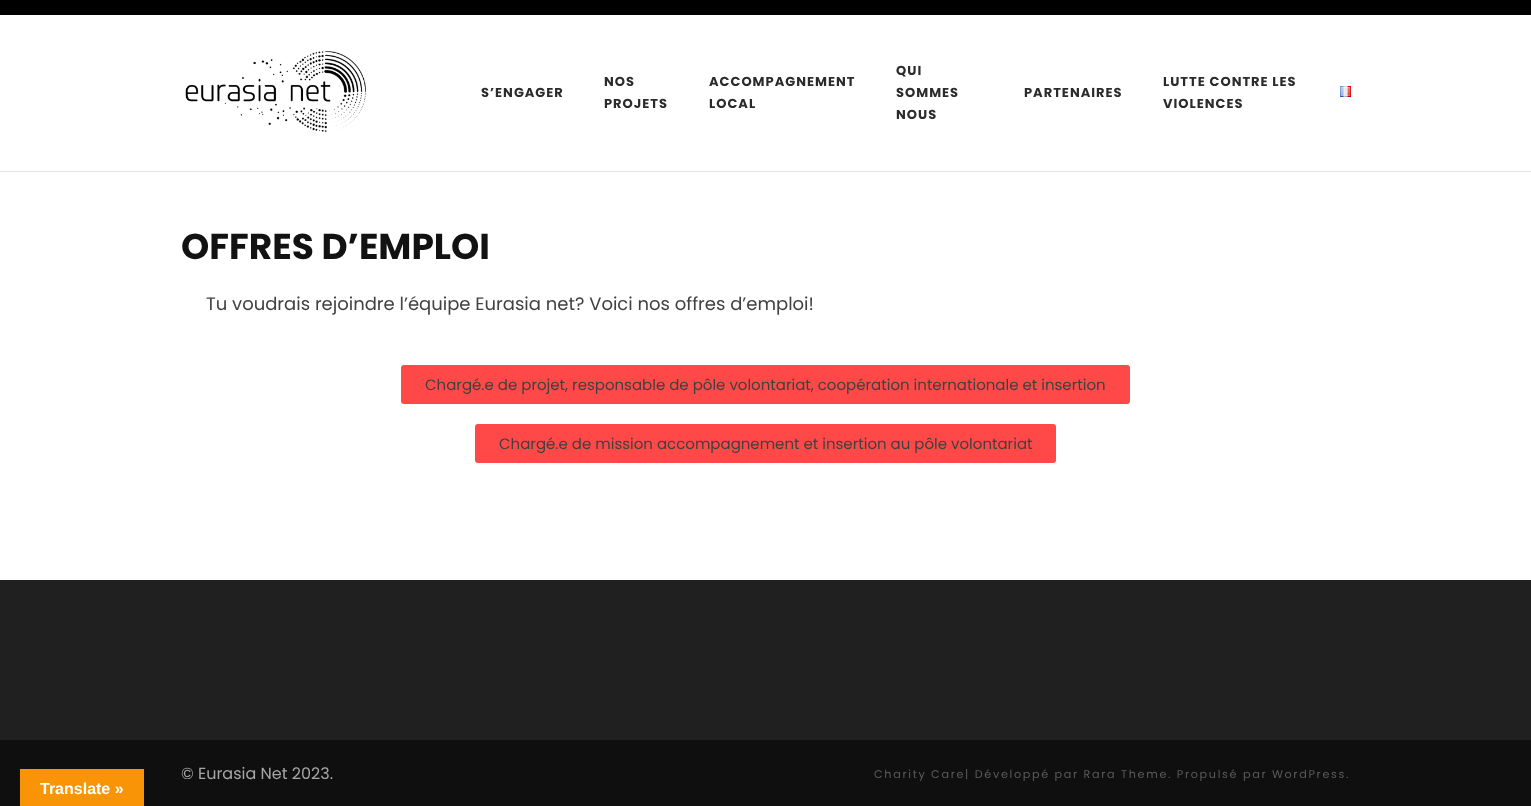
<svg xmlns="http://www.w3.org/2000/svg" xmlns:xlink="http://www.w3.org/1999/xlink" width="1531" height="806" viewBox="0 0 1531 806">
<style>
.cls-1{font:bold 13px Poppins;letter-spacing:1px;fill:#2b2b2b}
.cls-2{font:bold 36px Poppins;fill:#121212}
.cls-3{font:18px Poppins;fill:#414141}
.cls-4{font:15px Poppins;fill:#414141}
.cls-5{font:16px Poppins;fill:#a6a6a6}
.cls-6{font:11.2px Poppins;letter-spacing:1.68px;fill:#5b5b5b}
.cls-7{font:bold 16px Liberation Sans;fill:#ffffff}
</style>
<rect width="100%" height="100%" fill="#ffffff"/>
<rect fill="#e4e4e4" x="0" y="171" width="1531" height="1"/>
<rect fill="#000000" x="0" y="0" width="1531" height="15"/>
<image xlink:href="image0.png" x="185" y="51" width="181" height="81"/>
<image xlink:href="image1.png" x="1340" y="86" width="11" height="11"/>
<rect fill="#ff4949" x="401" y="365" width="729" height="39" rx="3"/>
<rect fill="#ff4949" x="475" y="424" width="581" height="39" rx="3"/>
<rect fill="#202020" x="0" y="580" width="1531" height="160"/>
<rect fill="#0f0f0f" x="0" y="740" width="1531" height="66"/>
<rect fill="#f89406" x="20" y="769" width="124" height="37"/>
<text class="cls-1" x="481" y="97">S’ENGAGER</text>
<text class="cls-1"><tspan x="604" y="86">NOS</tspan><tspan x="604" y="108">PROJETS</tspan></text>
<text class="cls-1"><tspan x="709" y="86">ACCOMPAGNEMENT</tspan><tspan x="709" y="108">LOCAL</tspan></text>
<text class="cls-1"><tspan x="896" y="75">QUI</tspan><tspan x="896" y="97">SOMMES</tspan><tspan x="896" y="119">NOUS</tspan></text>
<text class="cls-1" x="1024" y="97">PARTENAIRES</text>
<text class="cls-1"><tspan x="1163" y="86">LUTTE CONTRE LES</tspan><tspan x="1163" y="108">VIOLENCES</tspan></text>
<text class="cls-2" x="181" y="259">OFFRES D’EMPLOI</text>
<text class="cls-3" x="206" y="310">Tu voudrais rejoindre l’équipe Eurasia net? Voici nos offres d’emploi!</text>
<text class="cls-4" x="425" y="390">Chargé.e de projet, responsable de pôle volontariat, coopération internationale et insertion</text>
<text class="cls-4" x="499" y="449">Chargé.e de mission accompagnement et insertion au pôle volontariat</text>
<text class="cls-5" x="181" y="779">© Eurasia Net 2023.</text>
<text class="cls-6" x="874" y="778">Charity Care| Développé par Rara Theme. Propulsé par WordPress.</text>
<text class="cls-7" x="40" y="794">Translate »</text>
</svg>
